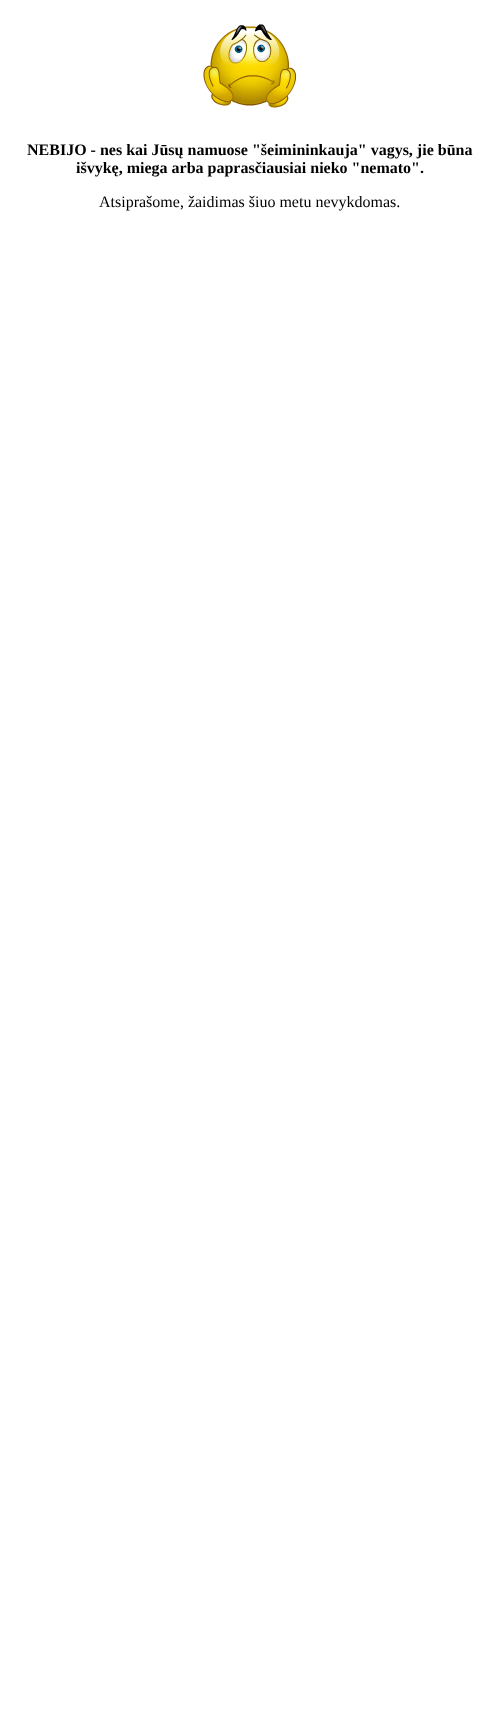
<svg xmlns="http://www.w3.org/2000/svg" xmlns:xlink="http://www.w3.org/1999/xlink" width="499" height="1735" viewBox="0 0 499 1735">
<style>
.cls-1{font:bold 16px Liberation Serif;fill:#000000}
.cls-2{font:16px Liberation Serif;fill:#000000}
</style>
<rect width="100%" height="100%" fill="#ffffff"/>
<image xlink:href="image0.png" x="203" y="24" width="93" height="84"/>
<text class="cls-1" x="27" y="155">NEBIJO - nes kai Jūsų namuose "šeimininkauja" vagys, jie būna</text>
<text class="cls-1" x="76" y="173">išvykę, miega arba paprasčiausiai nieko "nemato".</text>
<text class="cls-2" x="99" y="207">Atsiprašome, žaidimas šiuo metu nevykdomas.</text>
</svg>
